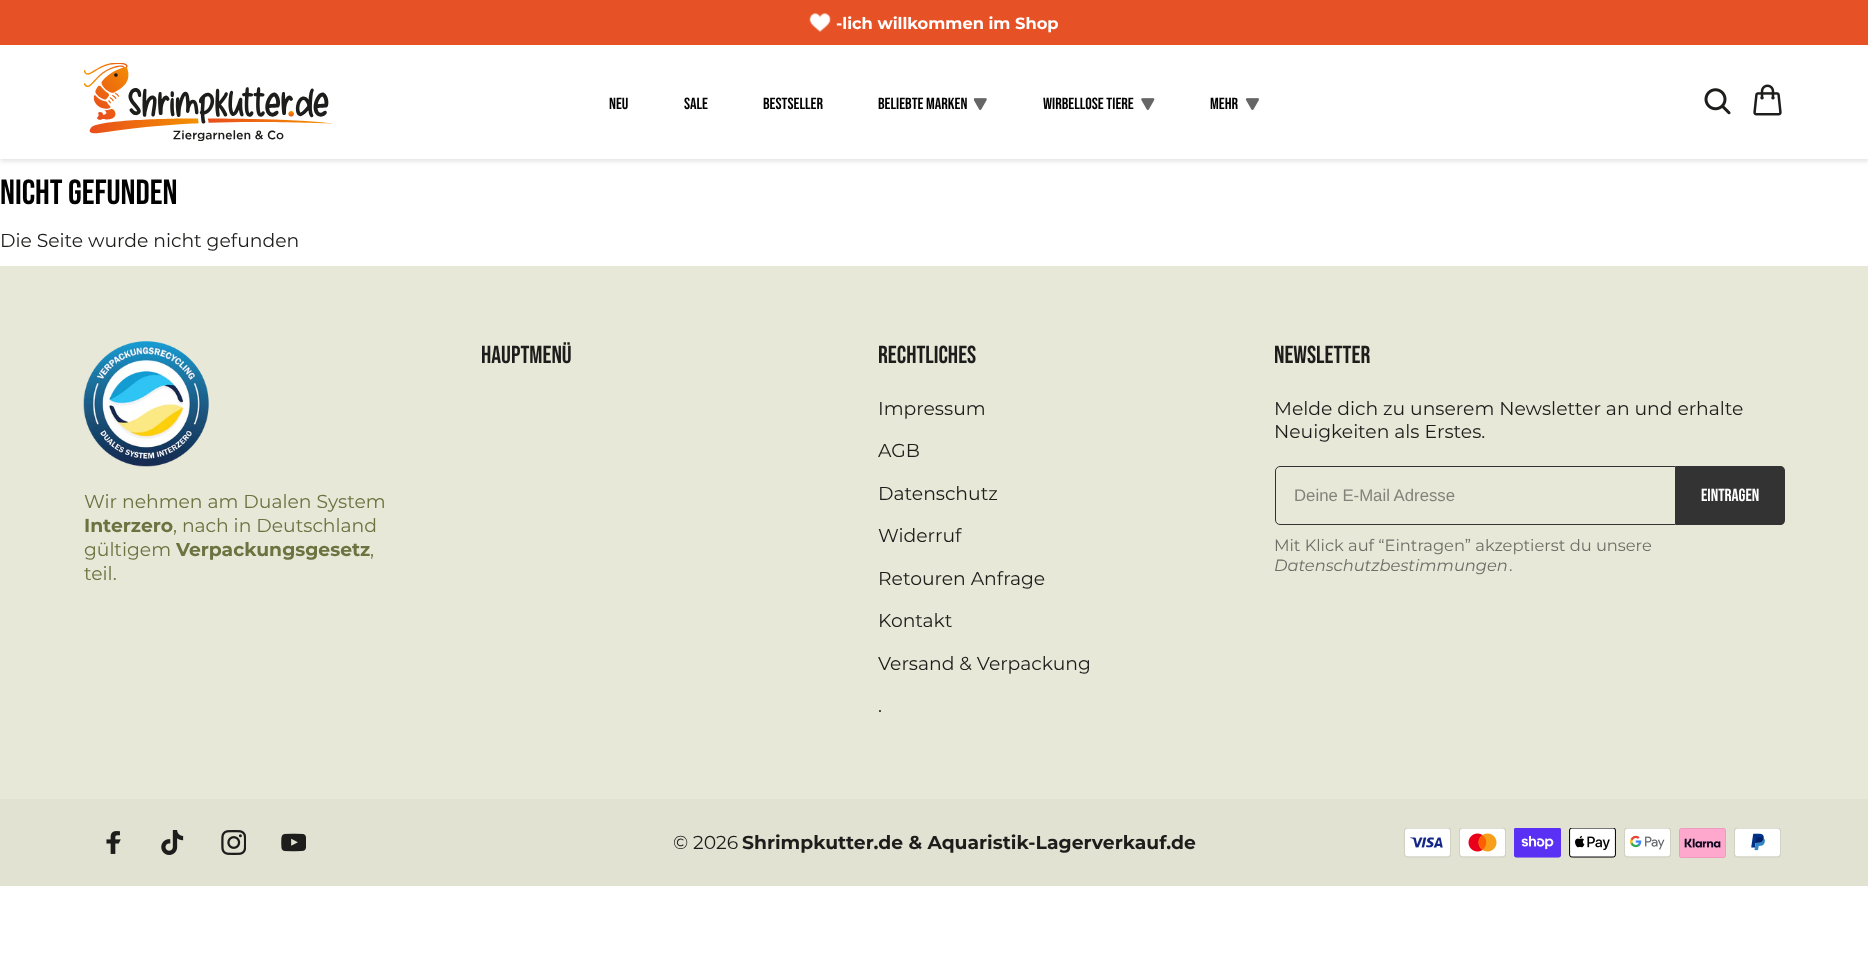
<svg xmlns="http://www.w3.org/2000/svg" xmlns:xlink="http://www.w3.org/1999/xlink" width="1868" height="967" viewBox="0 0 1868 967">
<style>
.cls-1{font:bold 16.25px Montserrat;fill:#ffffff}
.cls-2{font:16.25px Bebas Neue;fill:#000000}
.cls-3{font:35px Bebas Neue;fill:#000000}
.cls-4{font:18.75px Montserrat;fill:#1d1d1b}
.cls-5{font:18.75px Montserrat;fill:#6d7240}
.cls-6{font:bold 18.75px Montserrat;fill:#6d7240}
.cls-7{font:24.5px Bebas Neue;fill:#1d1d1b}
.cls-8{font:16.75px Liberation Sans;fill:#82837a}
.cls-9{font:17.5px Bebas Neue;fill:#ffffff}
.cls-10{font:16.3px Montserrat;fill:#6e6e67}
.cls-11{font:italic 16.3px Montserrat;fill:#6e6e67}
.cls-12{font:bold 18.75px Montserrat;fill:#1d1d1b}
</style>
<rect width="100%" height="100%" fill="#ffffff"/>
<rect fill="#000000" fill-opacity="0.12" filter="blur(2.5px)" x="0" y="48" width="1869" height="113"/>
<rect fill="#e65125" x="0" y="0" width="1868" height="45"/>
<image xlink:href="image0.png" x="809" y="13" width="22" height="19"/>
<rect fill="#ffffff" x="0" y="45" width="1868" height="114"/>
<image xlink:href="image1.png" x="84" y="63" width="248" height="78"/>
<image xlink:href="image2.png" x="974" y="98" width="13" height="12"/>
<image xlink:href="image3.png" x="1141" y="98" width="14" height="12"/>
<image xlink:href="image4.png" x="1245" y="98" width="14" height="12"/>
<image xlink:href="image5.png" x="1704" y="88" width="27" height="27"/>
<image xlink:href="image6.png" x="1753" y="84" width="29" height="32"/>
<rect fill="#e7e8d8" x="0" y="266" width="1868" height="533"/>
<image xlink:href="image7.png" x="83" y="341" width="126" height="126"/>
<path fill="none" stroke="#333333" d="M1280 466.5H1675.5V524.5H1280C1277.5 524.5 1275.5 522.5 1275.5 520V471C1275.5 468.5 1277.5 466.5 1280 466.5Z"/>
<path fill="#333333" d="M1676 466H1780C1783 466 1785 468 1785 471V520C1785 523 1783 525 1780 525H1676Z"/>
<rect fill="#e2e2d3" x="0" y="799" width="1868" height="87"/>
<image xlink:href="image8.png" x="106" y="831" width="15" height="23"/>
<image xlink:href="image9.png" x="161" y="830" width="23" height="25"/>
<image xlink:href="image10.png" x="221" y="830" width="25" height="25"/>
<image xlink:href="image11.png" x="281" y="833" width="25" height="19"/>
<image xlink:href="image12.png" x="1404" y="828" width="47" height="30"/>
<image xlink:href="image13.png" x="1459" y="828" width="47" height="30"/>
<image xlink:href="image14.png" x="1514" y="828" width="47" height="30"/>
<image xlink:href="image15.png" x="1569" y="828" width="47" height="30"/>
<image xlink:href="image16.png" x="1624" y="828" width="47" height="30"/>
<image xlink:href="image17.png" x="1679" y="828" width="47" height="30"/>
<image xlink:href="image18.png" x="1734" y="828" width="47" height="30"/>
<text class="cls-1" x="836" y="29">-lich willkommen im Shop</text>
<text class="cls-2" x="609" y="109">NEU</text>
<text class="cls-2" x="684" y="109">SALE</text>
<text class="cls-2" x="763" y="109">Bestseller</text>
<text class="cls-2" x="878" y="109">Beliebte Marken</text>
<text class="cls-2" x="1043" y="109">Wirbellose Tiere</text>
<text class="cls-2" x="1210" y="109">Mehr</text>
<text class="cls-3" x="0" y="204">Nicht gefunden</text>
<text class="cls-4" x="0" y="247">Die Seite wurde nicht gefunden</text>
<text class="cls-5" x="84" y="508">Wir nehmen am Dualen System</text>
<text class="cls-6" x="84" y="532">Interzero</text>
<text class="cls-5" x="173" y="532">, nach in Deutschland</text>
<text class="cls-5" x="84" y="556">gültigem</text>
<text class="cls-6" x="176" y="556">Verpackungsgesetz</text>
<text class="cls-5" x="370" y="556">,</text>
<text class="cls-5" x="84" y="580">teil.</text>
<text class="cls-7" x="481" y="363">Hauptmenü</text>
<text class="cls-7" x="878" y="363">Rechtliches</text>
<text class="cls-4" x="878" y="415">Impressum</text>
<text class="cls-4" x="878" y="457">AGB</text>
<text class="cls-4" x="878" y="500">Datenschutz</text>
<text class="cls-4" x="878" y="542">Widerruf</text>
<text class="cls-4" x="878" y="585">Retouren Anfrage</text>
<text class="cls-4" x="878" y="627">Kontakt</text>
<text class="cls-4" x="878" y="670">Versand &amp; Verpackung</text>
<text class="cls-4" x="878" y="712">.</text>
<text class="cls-7" x="1274" y="363">Newsletter</text>
<text class="cls-4"><tspan x="1274" y="415">Melde dich zu unserem Newsletter an und erhalte</tspan><tspan x="1274" y="438">Neuigkeiten als Erstes.</tspan></text>
<text class="cls-8" x="1294" y="501">Deine E-Mail Adresse</text>
<text class="cls-9" x="1701" y="501">Eintragen</text>
<text class="cls-10" x="1274" y="551">Mit Klick auf “Eintragen” akzeptierst du unsere</text>
<text class="cls-11" x="1274" y="571">Datenschutzbestimmungen</text>
<text class="cls-10" x="1509" y="571">.</text>
<text class="cls-4" x="673" y="849">© 2026</text>
<text class="cls-12" x="742" y="849">Shrimpkutter.de &amp; Aquaristik-Lagerverkauf.de</text>
</svg>
